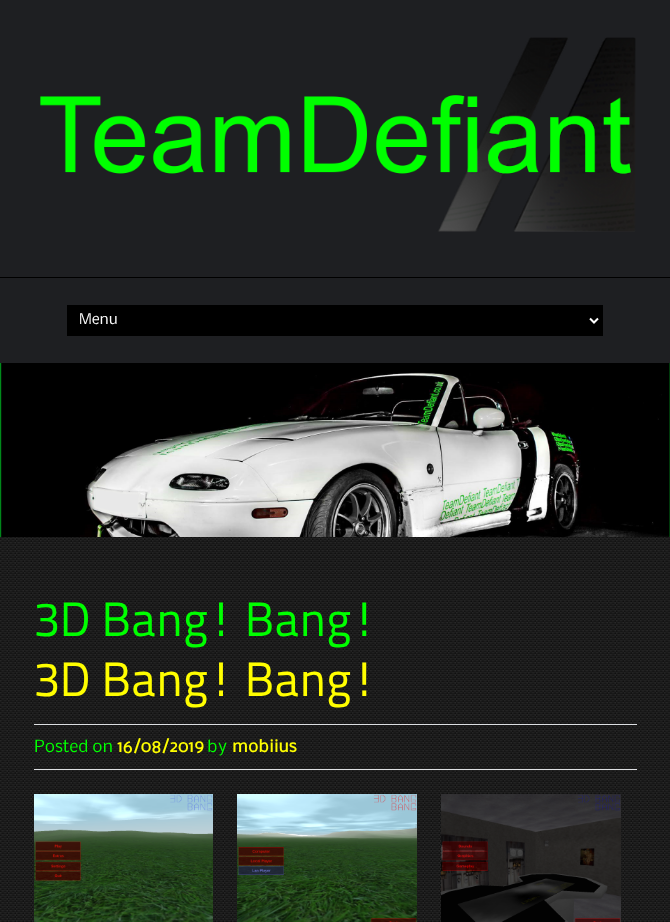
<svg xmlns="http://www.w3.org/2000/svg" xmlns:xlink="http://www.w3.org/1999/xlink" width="670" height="922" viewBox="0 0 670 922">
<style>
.cls-1{font:14px Nobile;fill:#ffffff}
.cls-2{font:48px 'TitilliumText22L';fill:#00ff00}
.cls-3{font:48px 'TitilliumText22L';fill:#ffff00}
.cls-4{font:16px Nobile;fill:#00ff00}
.cls-5{font:bold 16px Nobile;fill:#ffff00}
</style>
<rect width="100%" height="100%" fill="#ffffff"/>
<image xlink:href="image0.png" x="0" y="537" width="670" height="385"/>
<rect fill="#1e1f22" x="0" y="0" width="670" height="363"/>
<image xlink:href="image1.png" x="40" y="37" width="596" height="195"/>
<rect fill="#000000" x="0" y="277" width="670" height="1"/>
<rect fill="#000000" x="67" y="305" width="536" height="31"/>
<path fill="none" stroke="#ffffff" stroke-width="2" d="M590 318.5L594 322.5L598 318.5"/>
<image xlink:href="image2.png" x="0" y="363" width="670" height="174"/>
<image xlink:href="image3.png" x="0" y="363" width="670" height="174"/>
<rect fill="#dddfe2" x="34" y="724" width="603" height="1"/>
<rect fill="#dddfe2" x="34" y="769" width="603" height="1"/>
<image xlink:href="image4.png" x="34" y="794" width="179" height="128"/>
<image xlink:href="image5.png" x="237" y="794" width="180" height="128"/>
<image xlink:href="image6.png" x="441" y="794" width="180" height="128"/>
<text class="cls-1" x="79" y="324">Menu</text>
<text class="cls-2" x="34" y="636">3D Bang! Bang!</text>
<text class="cls-3" x="34" y="696">3D Bang! Bang!</text>
<text class="cls-4" x="34" y="752">Posted on</text>
<text class="cls-5" x="117" y="752">16/08/2019</text>
<text class="cls-4" x="207" y="752">by</text>
<text class="cls-5" x="232" y="752">mobiius</text>
</svg>
